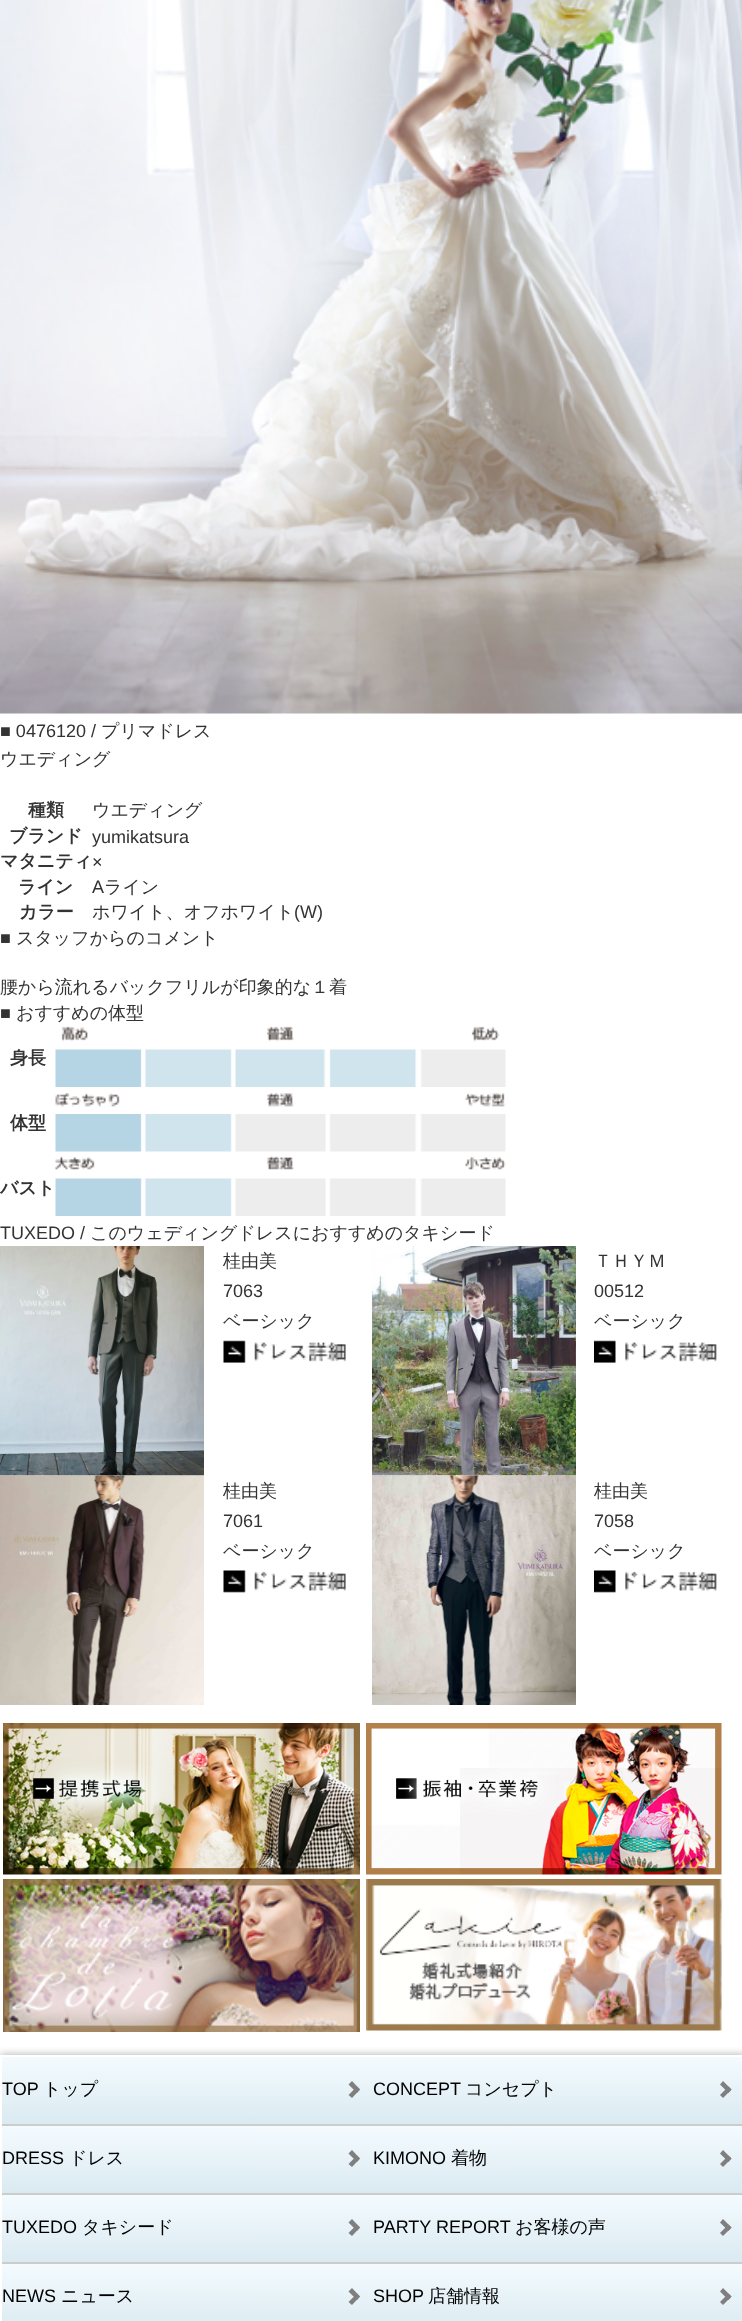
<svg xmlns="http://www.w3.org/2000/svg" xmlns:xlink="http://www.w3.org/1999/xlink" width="742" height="2321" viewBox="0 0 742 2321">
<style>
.cls-1{font:18px Liberation Sans;fill:#333333}
.cls-2{font:500 18px WenQuanYi Zen Hei;fill:#333333}
.cls-3{font:bold 18px WenQuanYi Zen Hei;fill:#333333}
.cls-4{font:18px Liberation Sans;fill:#000000}
.cls-5{font:500 18px WenQuanYi Zen Hei;fill:#000000}
</style>
<defs>
<clipPath id="clip1"><rect x="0" y="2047" width="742" height="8"/></clipPath>
<linearGradient id="g1" gradientUnits="userSpaceOnUse" x1="188" y1="2057" x2="188" y2="2124"><stop offset="0" stop-color="#f4fbff"/><stop offset="1" stop-color="#daeaf1"/></linearGradient>
<linearGradient id="g2" gradientUnits="userSpaceOnUse" x1="559" y1="2057" x2="559" y2="2124"><stop offset="0" stop-color="#f4fbff"/><stop offset="1" stop-color="#daeaf1"/></linearGradient>
<linearGradient id="g3" gradientUnits="userSpaceOnUse" x1="188" y1="2126" x2="188" y2="2193"><stop offset="0" stop-color="#f4fbff"/><stop offset="1" stop-color="#daeaf1"/></linearGradient>
<linearGradient id="g4" gradientUnits="userSpaceOnUse" x1="559" y1="2126" x2="559" y2="2193"><stop offset="0" stop-color="#f4fbff"/><stop offset="1" stop-color="#daeaf1"/></linearGradient>
<linearGradient id="g5" gradientUnits="userSpaceOnUse" x1="188" y1="2195" x2="188" y2="2262"><stop offset="0" stop-color="#f4fbff"/><stop offset="1" stop-color="#daeaf1"/></linearGradient>
<linearGradient id="g6" gradientUnits="userSpaceOnUse" x1="559" y1="2195" x2="559" y2="2262"><stop offset="0" stop-color="#f4fbff"/><stop offset="1" stop-color="#daeaf1"/></linearGradient>
<linearGradient id="g7" gradientUnits="userSpaceOnUse" x1="188" y1="2264" x2="188" y2="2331"><stop offset="0" stop-color="#f4fbff"/><stop offset="1" stop-color="#daeaf1"/></linearGradient>
<linearGradient id="g8" gradientUnits="userSpaceOnUse" x1="559" y1="2264" x2="559" y2="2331"><stop offset="0" stop-color="#f4fbff"/><stop offset="1" stop-color="#daeaf1"/></linearGradient>
</defs>
<rect width="100%" height="100%" fill="#ffffff"/>
<image xlink:href="image0.png" x="0" y="0" width="742" height="714"/>
<image xlink:href="image1.png" x="61" y="1026" width="439" height="16"/>
<image xlink:href="image2.png" x="55" y="1049" width="451" height="38"/>
<image xlink:href="image3.png" x="55" y="1093" width="451" height="14"/>
<image xlink:href="image4.png" x="55" y="1114" width="451" height="38"/>
<image xlink:href="image5.png" x="55" y="1156" width="451" height="14"/>
<image xlink:href="image6.png" x="55" y="1178" width="451" height="38"/>
<image xlink:href="image7.png" x="0" y="1246" width="204" height="230"/>
<image xlink:href="image8.png" x="223" y="1340" width="123" height="23"/>
<image xlink:href="image9.png" x="372" y="1246" width="204" height="230"/>
<image xlink:href="image10.png" x="594" y="1340" width="123" height="23"/>
<image xlink:href="image11.png" x="0" y="1475" width="204" height="230"/>
<image xlink:href="image12.png" x="223" y="1570" width="123" height="23"/>
<image xlink:href="image13.png" x="372" y="1475" width="204" height="230"/>
<image xlink:href="image14.png" x="594" y="1570" width="123" height="23"/>
<image xlink:href="image15.png" x="3" y="1723" width="357" height="152"/>
<image xlink:href="image16.png" x="366" y="1723" width="356" height="152"/>
<image xlink:href="image17.png" x="3" y="1879" width="357" height="153"/>
<image xlink:href="image18.png" x="366" y="1879" width="356" height="152"/>
<g clip-path="url(#clip1)">
<rect fill="#aaaaaa" filter="blur(4px)" x="0" y="2055" width="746" height="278"/>
</g>
<rect fill="url(#g1)" x="2" y="2057" width="372" height="67"/>
<rect fill="#cccccc" x="2" y="2124" width="740" height="2"/>
<path fill="#7f7f7f" d="M352 2081L360 2089.5L357 2093L348.5 2084.5Z"/>
<path fill="#7f7f7f" d="M357 2086.5L360 2089.5L352 2098L348.5 2095Z"/>
<rect fill="url(#g2)" x="374" y="2057" width="368" height="67"/>
<path fill="#7f7f7f" d="M723 2081L731.5 2089.5L728.5 2093L720 2084.5Z"/>
<path fill="#7f7f7f" d="M728.5 2086.5L731.5 2089.5L723 2098L720 2095Z"/>
<rect fill="url(#g3)" x="2" y="2126" width="372" height="67"/>
<rect fill="#cccccc" x="2" y="2193" width="740" height="2"/>
<path fill="#7f7f7f" d="M352 2150L360 2158.5L357 2162L348.5 2153.5Z"/>
<path fill="#7f7f7f" d="M357 2155.5L360 2158.5L352 2167L348.5 2164Z"/>
<rect fill="url(#g4)" x="374" y="2126" width="368" height="67"/>
<path fill="#7f7f7f" d="M723 2150L731.5 2158.5L728.5 2162L720 2153.5Z"/>
<path fill="#7f7f7f" d="M728.5 2155.5L731.5 2158.5L723 2167L720 2164Z"/>
<rect fill="url(#g5)" x="2" y="2195" width="372" height="67"/>
<rect fill="#cccccc" x="2" y="2262" width="740" height="2"/>
<path fill="#7f7f7f" d="M352 2219L360 2227.5L357 2231L348.5 2222.5Z"/>
<path fill="#7f7f7f" d="M357 2224.5L360 2227.5L352 2236L348.5 2233Z"/>
<rect fill="url(#g6)" x="374" y="2195" width="368" height="67"/>
<path fill="#7f7f7f" d="M723 2219L731.5 2227.5L728.5 2231L720 2222.5Z"/>
<path fill="#7f7f7f" d="M728.5 2224.5L731.5 2227.5L723 2236L720 2233Z"/>
<rect fill="url(#g7)" x="2" y="2264" width="372" height="57"/>
<path fill="#7f7f7f" d="M352 2288L360 2296.5L357 2300L348.5 2291.5Z"/>
<path fill="#7f7f7f" d="M357 2293.5L360 2296.5L352 2305L348.5 2302Z"/>
<rect fill="url(#g8)" x="374" y="2264" width="368" height="57"/>
<path fill="#7f7f7f" d="M723 2288L731.5 2296.5L728.5 2300L720 2291.5Z"/>
<path fill="#7f7f7f" d="M728.5 2293.5L731.5 2296.5L723 2305L720 2302Z"/>
<text class="cls-1" x="0" y="737">■ 0476120 /</text>
<text class="cls-2" x="101" y="737">プリマドレス</text>
<text class="cls-2" x="0" y="765">ウエディング</text>
<text class="cls-3" x="28" y="816">種類</text>
<text class="cls-2" x="92" y="816">ウエディング</text>
<text class="cls-3" x="9" y="842">ブランド</text>
<text class="cls-1" x="92" y="843">yumikatsura</text>
<text class="cls-3" x="0" y="867">マタニティ</text>
<text class="cls-1" x="92" y="868">×</text>
<text class="cls-3" x="18" y="893">ライン</text>
<text class="cls-1" x="92" y="893">A</text>
<text class="cls-2" x="104" y="893">ライン</text>
<text class="cls-3" x="19" y="918">カラー</text>
<text class="cls-2" x="92" y="918">ホワイト、オフホワイト</text>
<text class="cls-1" x="294" y="918">(W)</text>
<text class="cls-1" x="0" y="944">■</text>
<text class="cls-2" x="16" y="944">スタッフからのコメント</text>
<text class="cls-2" x="0" y="993">腰から流れるバックフリルが印象的な１着</text>
<text class="cls-1" x="0" y="1019">■</text>
<text class="cls-2" x="16" y="1019">おすすめの体型</text>
<text class="cls-3" x="10" y="1064">身長</text>
<text class="cls-3" x="10" y="1129">体型</text>
<text class="cls-3" x="0" y="1194">バスト</text>
<text class="cls-1" x="0" y="1239">TUXEDO /</text>
<text class="cls-2" x="90" y="1239">このウェディングドレスにおすすめのタキシード</text>
<text class="cls-2" x="223" y="1267">桂由美</text>
<text class="cls-1" x="223" y="1297">7063</text>
<text class="cls-2" x="223" y="1327">ベーシック</text>
<text class="cls-2" x="594" y="1267">ＴＨＹＭ</text>
<text class="cls-1" x="594" y="1297">00512</text>
<text class="cls-2" x="594" y="1327">ベーシック</text>
<text class="cls-2" x="223" y="1497">桂由美</text>
<text class="cls-1" x="223" y="1527">7061</text>
<text class="cls-2" x="223" y="1557">ベーシック</text>
<text class="cls-2" x="594" y="1497">桂由美</text>
<text class="cls-1" x="594" y="1527">7058</text>
<text class="cls-2" x="594" y="1557">ベーシック</text>
<text class="cls-4" x="2" y="2095">TOP</text>
<text class="cls-5" x="43" y="2095">トップ</text>
<text class="cls-4" x="373" y="2095">CONCEPT</text>
<text class="cls-5" x="465" y="2095">コンセプト</text>
<text class="cls-4" x="2" y="2164">DRESS</text>
<text class="cls-5" x="69" y="2164">ドレス</text>
<text class="cls-4" x="373" y="2164">KIMONO</text>
<text class="cls-5" x="451" y="2164">着物</text>
<text class="cls-4" x="2" y="2233">TUXEDO</text>
<text class="cls-5" x="82" y="2233">タキシード</text>
<text class="cls-4" x="373" y="2233">PARTY REPORT</text>
<text class="cls-5" x="515" y="2233">お客様の声</text>
<text class="cls-4" x="2" y="2302">NEWS</text>
<text class="cls-5" x="61" y="2302">ニュース</text>
<text class="cls-4" x="373" y="2302">SHOP</text>
<text class="cls-5" x="428" y="2302">店舗情報</text>
</svg>
